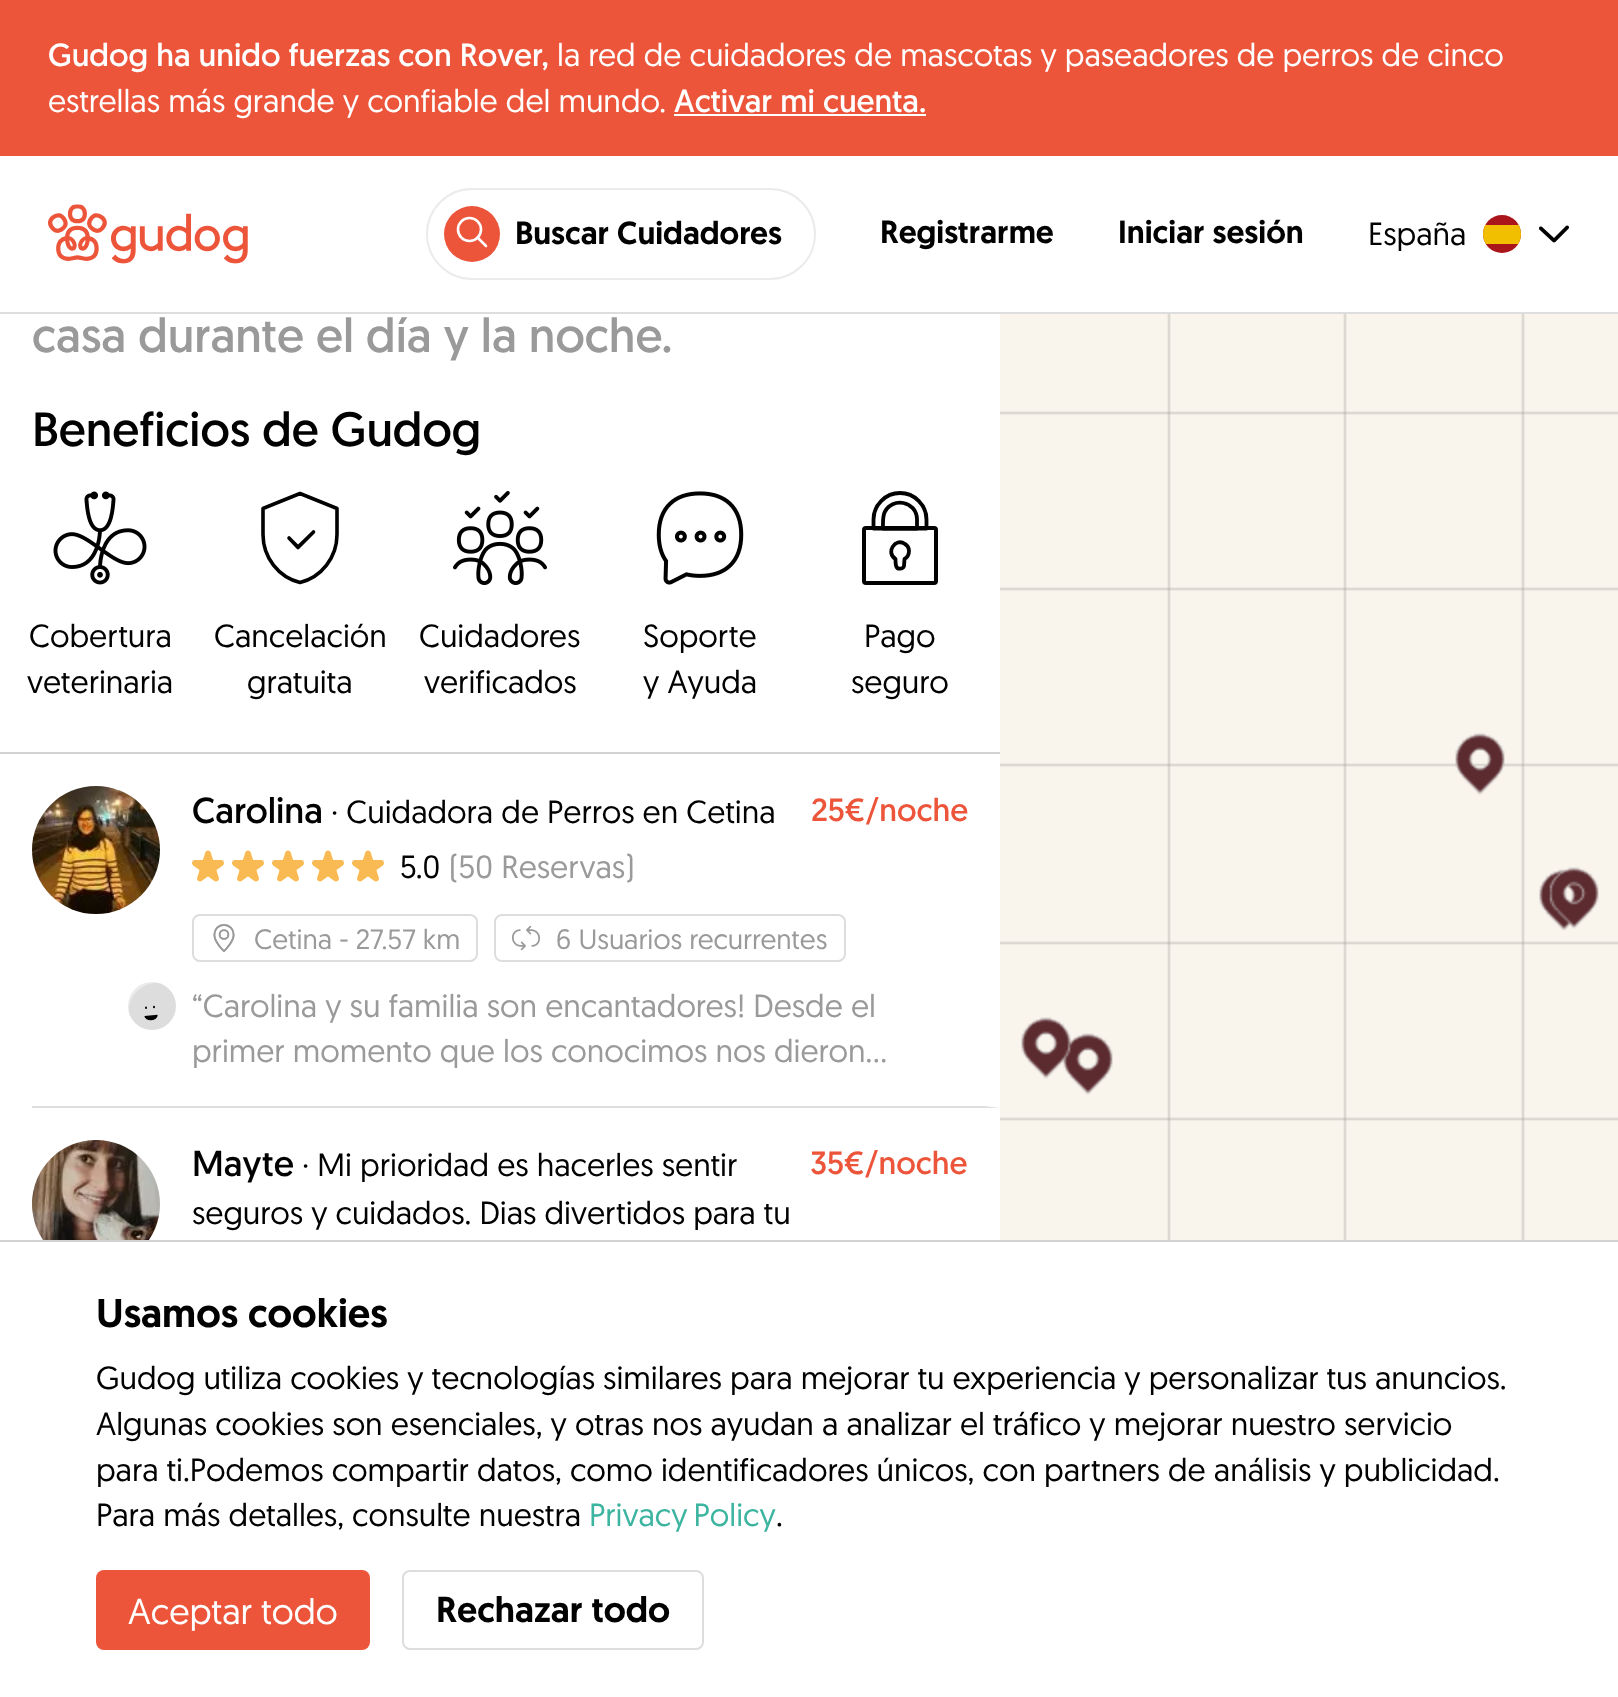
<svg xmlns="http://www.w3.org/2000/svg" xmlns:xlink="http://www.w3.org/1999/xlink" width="1618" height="1697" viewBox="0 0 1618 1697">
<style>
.cls-1{font:32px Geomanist;fill:#ffffff}
.cls-2{font:32px 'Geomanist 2';fill:#ffffff}
.cls-3{font:500 32px Geomanist;fill:#010101}
.cls-4{font:32px 'Geomanist 2';fill:#010101}
.cls-5{font:48px Geomanist;fill:#9a9a9a}
.cls-6{font:48px Geomanist;fill:#010101}
.cls-7{font:36px Geomanist;fill:#010101}
.cls-8{font:32px Geomanist;fill:#ed553b}
.cls-9{font:32px 'Geomanist 2';fill:#9a9a9a}
.cls-10{font:28px 'Geomanist 2';fill:#9a9a9a}
.cls-11{font:500 40px Geomanist;fill:#010101}
.cls-12{font:32px 'Geomanist 2';fill:#3cb4a0}
.cls-13{font:36px 'Geomanist 2';fill:#ffffff}
.cls-14{font:500 36px Geomanist;fill:#010101}
</style>
<defs>
<clipPath id="clip1"><rect x="1483" y="215" width="38" height="38" rx="19"/></clipPath>
</defs>
<rect width="100%" height="100%" fill="#ffffff"/>
<rect fill="#ed553b" x="0" y="0" width="1618" height="156"/>
<rect fill="#ffffff" x="674" y="114" width="252" height="2"/>
<rect fill="#dddddd" x="0" y="312" width="1618" height="2"/>
<image xlink:href="image0.png" x="48" y="204" width="200" height="60"/>
<rect fill="none" stroke="#ebebeb" stroke-width="2" x="427" y="189" width="388" height="90" rx="45"/>
<circle fill="#ed553b" cx="472" cy="234" r="28"/>
<circle fill="none" stroke="#ffffff" stroke-width="2.6" cx="469.5" cy="229.5" r="11.5"/>
<path fill="none" stroke="#ffffff" stroke-width="2.6" stroke-linecap="round" stroke-linejoin="round" d="M486 246L477.5 237.5"/>
<circle fill="#aa151b" cx="1502" cy="234" r="19"/>
<g clip-path="url(#clip1)">
<rect fill="#f1bf00" x="1483" y="225" width="38" height="19"/>
</g>
<image xlink:href="image1.png" x="1539" y="225" width="30" height="18"/>
<rect fill="#d3d3d3" x="0" y="752" width="1000" height="2"/>
<image xlink:href="image2.png" x="53" y="491" width="94" height="94"/>
<path fill="none" stroke="#010101" stroke-width="3.6" stroke-linecap="round" stroke-linejoin="round" d="M337 508.5V534.5C337 557.5 321.5 577 300 582.5C278.5 577 263 557.5 263 534.5V508.5L300 493.5Z"/>
<path fill="none" stroke="#010101" stroke-width="3.6" stroke-linecap="round" stroke-linejoin="round" d="M298 547.5L289 538L298 547L313.5 532Z"/>
<image xlink:href="image3.png" x="453" y="491" width="94" height="94"/>
<image xlink:href="image4.png" x="656" y="491" width="88" height="94"/>
<rect fill="none" stroke="#010101" stroke-width="4" x="864" y="528" width="72" height="55" rx="2"/>
<path fill="none" stroke="#010101" stroke-width="3.8" stroke-linecap="round" stroke-linejoin="round" d="M909 551C909 548.5 907.5 545.5 905 544C895 537 885.5 553 895.5 559C895.5 562.5 895 570 901 568.5C902.5 568.5 903.5 567.5 904 566L904.5 559C907 557.5 909 554.5 909 551ZM926.5 528.5V519.5C926.5 505 914.5 493 900 493C885.5 493 873.5 505 873.5 519.5V528.5Z"/>
<path fill="none" stroke="#010101" stroke-width="3.8" stroke-linecap="round" stroke-linejoin="round" d="M917 519C916.5 501 892 496.5 884.5 512.5C882.5 517.5 883 523 883 528.5H917Z"/>
<path fill="#dddddd" d="M1000 1108H32V1106H984Z"/>
<image xlink:href="image5.png" x="32" y="786" width="128" height="128"/>
<image xlink:href="image6.png" x="192" y="850" width="32" height="32"/>
<image xlink:href="image7.png" x="232" y="850" width="32" height="32"/>
<image xlink:href="image6.png" x="272" y="850" width="32" height="32"/>
<image xlink:href="image6.png" x="312" y="850" width="32" height="32"/>
<image xlink:href="image6.png" x="352" y="850" width="32" height="32"/>
<rect fill="none" stroke="#dddddd" stroke-width="2" x="193" y="915" width="284" height="46" rx="7"/>
<image xlink:href="image8.png" x="213" y="924" width="22" height="28"/>
<rect fill="none" stroke="#dddddd" stroke-width="2" x="495" y="915" width="350" height="46" rx="7"/>
<image xlink:href="image9.png" x="512" y="925" width="28" height="26"/>
<image xlink:href="image10.png" x="128" y="982" width="48" height="48"/>
<image xlink:href="image11.png" x="32" y="1140" width="128" height="100"/>
<image xlink:href="image12.png" x="1000" y="314" width="618" height="926"/>
<image xlink:href="image13.png" x="1021" y="733" width="578" height="362"/>
<rect fill="#d3d3d3" x="0" y="1240" width="1618" height="2"/>
<rect fill="#ed553b" x="96" y="1570" width="274" height="80" rx="8"/>
<rect fill="none" stroke="#dddddd" stroke-width="2" x="403" y="1571" width="300" height="78" rx="7"/>
<text class="cls-1" x="48" y="66">Gudog ha unido fuerzas con Rover,</text>
<text class="cls-2" x="557" y="66">la red de cuidadores de mascotas y paseadores de perros de cinco</text>
<text class="cls-2" x="48" y="112">estrellas más grande y confiable del mundo.</text>
<text class="cls-1" x="674" y="112">Activar mi cuenta.</text>
<text class="cls-3" x="515" y="244">Buscar Cuidadores</text>
<text class="cls-3" x="880" y="243">Registrarme</text>
<text class="cls-3" x="1118" y="243">Iniciar sesión</text>
<text class="cls-4" x="1368" y="245">España</text>
<text class="cls-5" x="32" y="352">casa durante el día y la noche.</text>
<text class="cls-6" x="32" y="446">Beneficios de Gudog</text>
<text class="cls-4" x="29" y="647">Cobertura</text>
<text class="cls-4" x="27" y="693">veterinaria</text>
<text class="cls-4" x="214" y="647">Cancelación</text>
<text class="cls-4" x="247" y="693">gratuita</text>
<text class="cls-4" x="419" y="647">Cuidadores</text>
<text class="cls-4" x="424" y="693">verificados</text>
<text class="cls-4"><tspan x="643" y="647">Soporte</tspan><tspan x="643" y="693">y Ayuda</tspan></text>
<text class="cls-4" x="864" y="647">Pago</text>
<text class="cls-4" x="851" y="693">seguro</text>
<text class="cls-7" x="192" y="823">Carolina</text>
<text class="cls-4" x="331" y="823">· Cuidadora de Perros en Cetina</text>
<text class="cls-8" x="811" y="821">25€/noche</text>
<text class="cls-4" x="400" y="878">5.0</text>
<text class="cls-9" x="449" y="878">(50 Reservas)</text>
<text class="cls-10" x="254" y="949">Cetina - 27.57 km</text>
<text class="cls-10" x="556" y="949">6 Usuarios recurrentes</text>
<text class="cls-9"><tspan x="192" y="1017">“Carolina y su familia son encantadores! Desde el</tspan><tspan x="192" y="1062">primer momento que los conocimos nos dieron…</tspan></text>
<text class="cls-7" x="192" y="1176">Mayte</text>
<text class="cls-4" x="302" y="1176">· Mi prioridad es hacerles sentir</text>
<text class="cls-4" x="192" y="1224">seguros y cuidados. Dias divertidos para tu</text>
<text class="cls-8" x="810" y="1174">35€/noche</text>
<text class="cls-11" x="96" y="1327">Usamos cookies</text>
<text class="cls-4"><tspan x="96" y="1389">Gudog utiliza cookies y tecnologías similares para mejorar tu experiencia y personalizar tus anuncios.</tspan><tspan x="96" y="1435">Algunas cookies son esenciales, y otras nos ayudan a analizar el tráfico y mejorar nuestro servicio</tspan><tspan x="96" y="1481">para ti.Podemos compartir datos, como identificadores únicos, con partners de análisis y publicidad.</tspan><tspan x="96" y="1526">Para más detalles, consulte nuestra</tspan></text>
<text class="cls-12" x="589" y="1526" word-spacing="-2">Privacy Policy</text>
<text class="cls-4" x="776" y="1526">.</text>
<text class="cls-13" x="128" y="1624">Aceptar todo</text>
<text class="cls-14" x="436" y="1622">Rechazar todo</text>
</svg>
